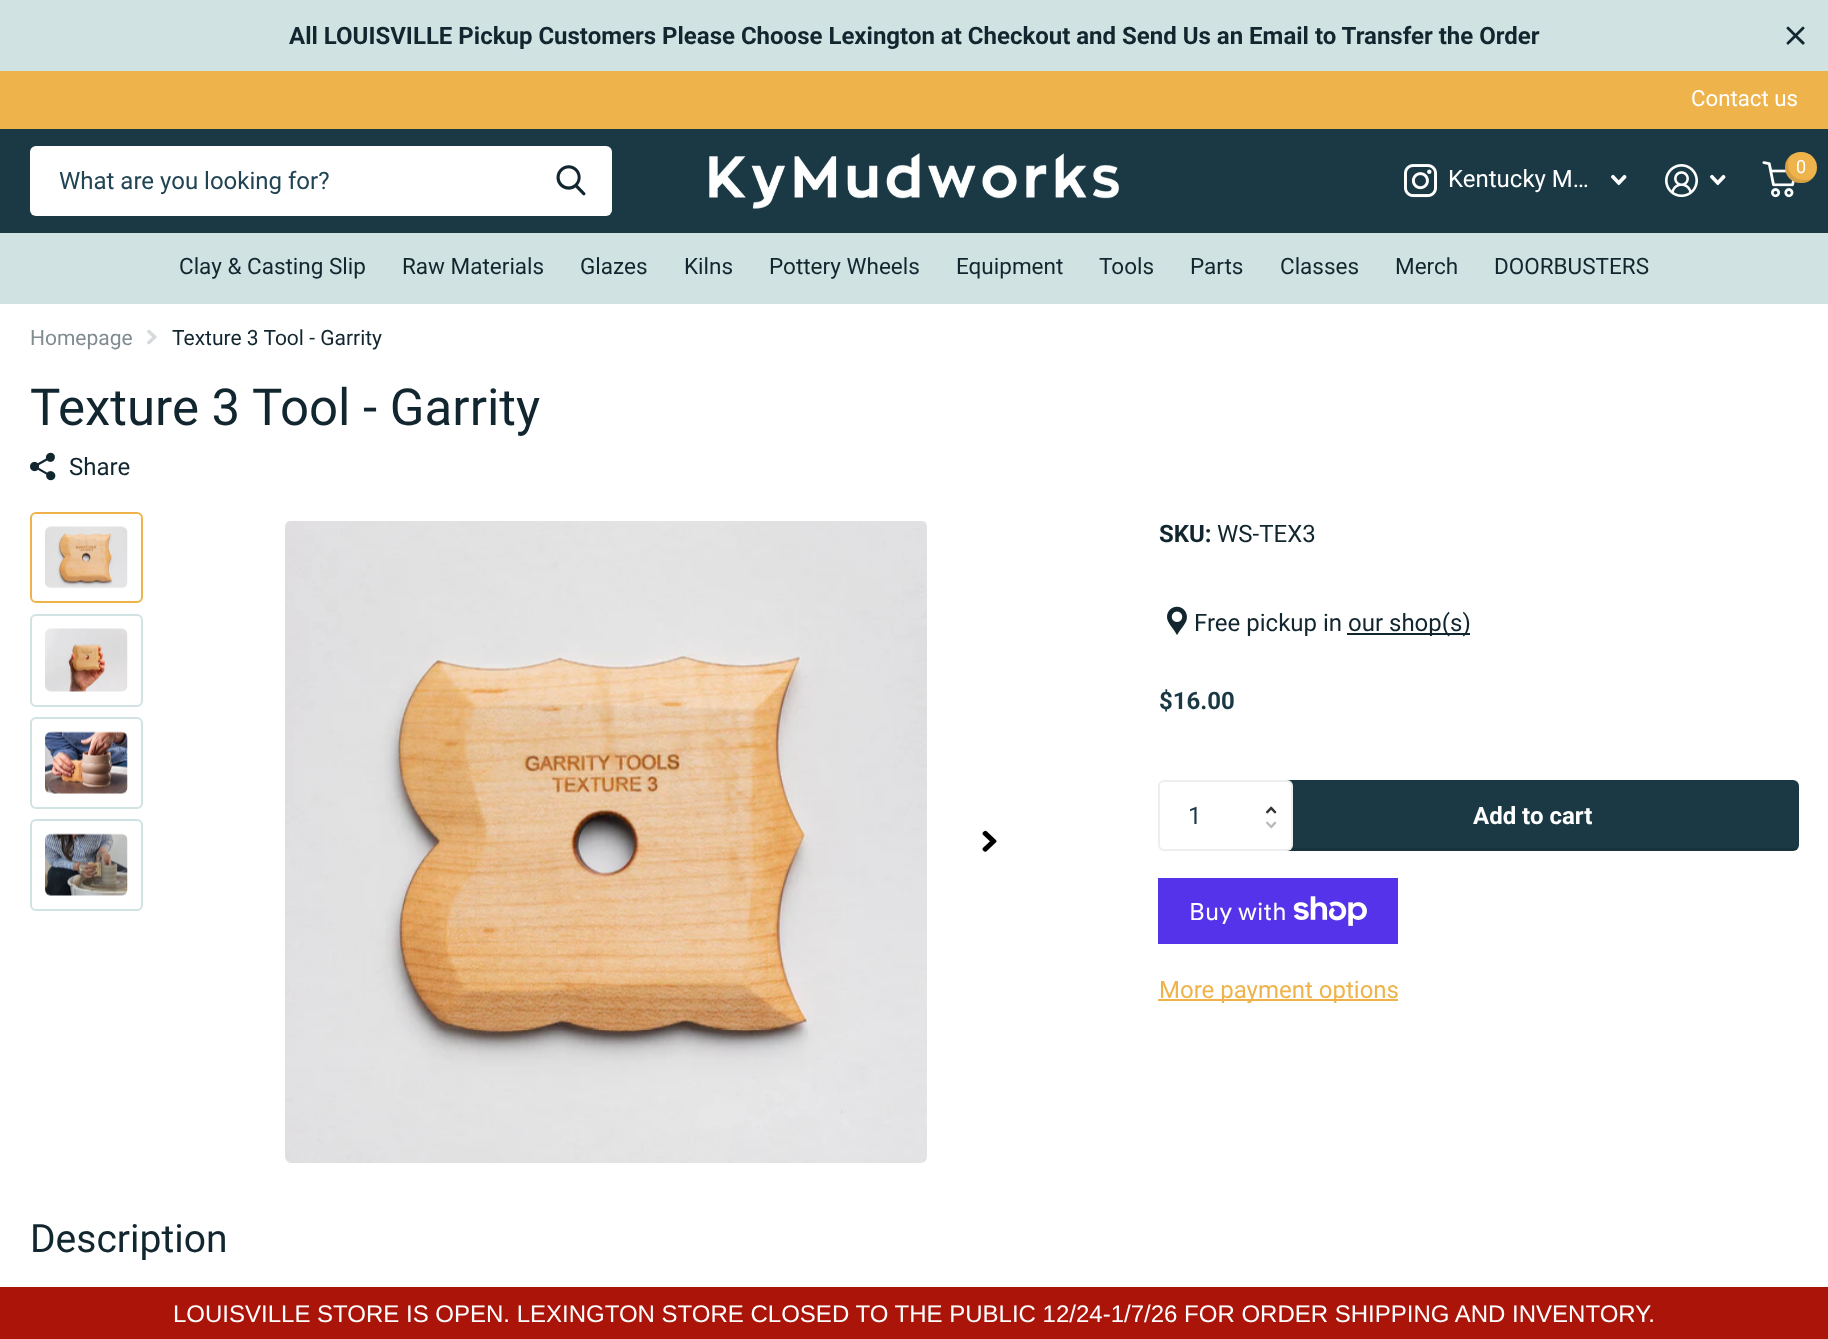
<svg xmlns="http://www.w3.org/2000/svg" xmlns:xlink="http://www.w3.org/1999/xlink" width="1828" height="1339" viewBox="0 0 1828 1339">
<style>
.cls-1{font:bold 24px Roboto;fill:#12262f}
.cls-2{font:22.25px Roboto;fill:#ffffff}
.cls-3{font:24px Roboto;fill:#204454}
.cls-4{font:24px Roboto;fill:#ffffff}
.cls-5{font:18px Roboto;fill:#ffffff}
.cls-6{font:22.5px Roboto;fill:#12262f}
.cls-7{font:21px Roboto;fill:#818c91}
.cls-8{font:21px Roboto;fill:#12262f}
.cls-9{font:51px Roboto;fill:#12262f}
.cls-10{font:24px Roboto;fill:#12262f}
.cls-11{font:bold 24px Roboto;fill:#1a3945}
.cls-12{font:24px Roboto;fill:#1a3945}
.cls-13{font:bold 24px Roboto;fill:#ffffff}
.cls-14{font:24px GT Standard;fill:#ffffff}
.cls-15{font:24px Roboto;fill:#efb34c}
.cls-16{font:39px Roboto;fill:#12262f}
.cls-17{font:24px Liberation Sans;fill:#ffffff}
</style>
<rect width="100%" height="100%" fill="#ffffff"/>
<rect fill="#d1e2e2" x="0" y="0" width="1828" height="71"/>
<image xlink:href="image0.png" x="1786" y="26" width="19" height="19"/>
<rect fill="#efb34c" x="0" y="71" width="1828" height="58"/>
<rect fill="#1a3945" x="0" y="129" width="1828" height="104"/>
<rect fill="#ffffff" x="30" y="146" width="582" height="70" rx="6"/>
<image xlink:href="image1.png" x="556" y="165" width="30" height="31"/>
<image xlink:href="image2.png" x="709" y="153" width="410" height="56"/>
<image xlink:href="image3.png" x="1404" y="164" width="33" height="34"/>
<image xlink:href="image4.png" x="1611" y="174" width="16" height="12"/>
<image xlink:href="image5.png" x="1665" y="164" width="33" height="34"/>
<image xlink:href="image4.png" x="1710" y="174" width="16" height="12"/>
<image xlink:href="image6.png" x="1762" y="161" width="33" height="37"/>
<rect fill="#efb34c" x="1785" y="152" width="32" height="31" rx="15.5"/>
<path fill="#000000" fill-opacity="0.1" d="M1814.5 175.5C1812 178.5 1808.5 180 1804 180C1790 180 1785 165.5 1790 156C1783 162.5 1783.5 174.5 1792 180.5C1799 185.5 1810 183 1814.5 175.5Z"/>
<rect fill="#d1e2e2" x="0" y="233" width="1828" height="71"/>
<image xlink:href="image7.png" x="147" y="329" width="10" height="16"/>
<image xlink:href="image8.png" x="30" y="452" width="26" height="29"/>
<image xlink:href="image9.png" x="1167" y="606" width="20" height="29"/>
<rect fill="#12262f" x="1347" y="633" width="123" height="2"/>
<rect fill="#1a3945" x="1266" y="780" width="533" height="71" rx="6"/>
<path fill="#000000" fill-opacity="0.1" d="M1270 780C1268 781 1266 784 1266 786V845C1266 848 1269 851 1272 851H1793C1795 851 1798 849 1799 847L1796 848H1275C1272 848 1269 845 1269 842V783Z"/>
<rect fill="#ffffff" x="1158" y="780" width="135" height="71" rx="6"/>
<rect fill="none" stroke="#12262f" stroke-opacity="0.08" stroke-width="2" x="1159" y="781" width="133" height="69" rx="5"/>
<image xlink:href="image10.png" x="1266" y="806" width="11" height="8"/>
<image xlink:href="image11.png" x="1266" y="821" width="11" height="8"/>
<rect fill="#5433eb" x="1158" y="878" width="240" height="66"/>
<image xlink:href="image12.png" x="1293" y="896" width="74" height="30"/>
<rect fill="#efb34c" x="1158" y="999" width="240" height="2"/>
<rect fill="none" stroke="#efb34c" stroke-width="2" x="31" y="513" width="111" height="89" rx="5"/>
<image xlink:href="image13.png" x="45" y="526" width="83" height="63"/>
<rect fill="none" stroke="#d1e2e2" stroke-width="2" x="31" y="615" width="111" height="91" rx="5"/>
<image xlink:href="image14.png" x="45" y="628" width="83" height="64"/>
<rect fill="none" stroke="#d1e2e2" stroke-width="2" x="31" y="718" width="111" height="90" rx="5"/>
<image xlink:href="image15.png" x="45" y="731" width="83" height="63"/>
<rect fill="none" stroke="#d1e2e2" stroke-width="2" x="31" y="820" width="111" height="90" rx="5"/>
<image xlink:href="image16.png" x="45" y="833" width="83" height="63"/>
<image xlink:href="image17.png" x="982" y="830" width="15" height="22"/>
<image xlink:href="image18.png" x="285" y="521" width="642" height="642"/>
<rect fill="#ab1509" x="0" y="1287" width="1828" height="52"/>
<text class="cls-1" x="289" y="44">All LOUISVILLE Pickup Customers Please Choose Lexington at Checkout and Send Us an Email to Transfer the Order</text>
<text class="cls-2" x="1691" y="106">Contact us</text>
<text class="cls-3" x="59" y="189">What are you looking for?</text>
<text class="cls-4" x="1448" y="187">Kentucky M…</text>
<text class="cls-5" x="1796" y="173">0</text>
<text class="cls-6" x="179" y="274">Clay &amp; Casting Slip</text>
<text class="cls-6" x="402" y="274">Raw Materials</text>
<text class="cls-6" x="580" y="274">Glazes</text>
<text class="cls-6" x="684" y="274">Kilns</text>
<text class="cls-6" x="769" y="274">Pottery Wheels</text>
<text class="cls-6" x="956" y="274">Equipment</text>
<text class="cls-6" x="1099" y="274">Tools</text>
<text class="cls-6" x="1190" y="274">Parts</text>
<text class="cls-6" x="1280" y="274">Classes</text>
<text class="cls-6" x="1395" y="274">Merch</text>
<text class="cls-6" x="1494" y="274">DOORBUSTERS</text>
<text class="cls-7" x="30" y="345">Homepage</text>
<text class="cls-8" x="172" y="345">Texture 3 Tool - Garrity</text>
<text class="cls-9" x="30" y="425">Texture 3 Tool - Garrity</text>
<text class="cls-10" x="69" y="475">Share</text>
<text class="cls-1" x="1159" y="542">SKU:</text>
<text class="cls-10" x="1217" y="542">WS-TEX3</text>
<text class="cls-10" x="1194" y="631">Free pickup in</text>
<text class="cls-10" x="1348" y="631">our shop(s)</text>
<text class="cls-11" x="1159" y="709">$16.00</text>
<text class="cls-12" x="1188" y="824">1</text>
<text class="cls-13" x="1473" y="824">Add to cart</text>
<text class="cls-14" x="1189" y="920">Buy with</text>
<text class="cls-15" x="1159" y="998">More payment options</text>
<text class="cls-16" x="30" y="1252">Description</text>
<text class="cls-17" x="173" y="1322">LOUISVILLE STORE IS OPEN. LEXINGTON STORE CLOSED TO THE PUBLIC 12/24-1/7/26 FOR ORDER SHIPPING AND INVENTORY.</text>
</svg>
